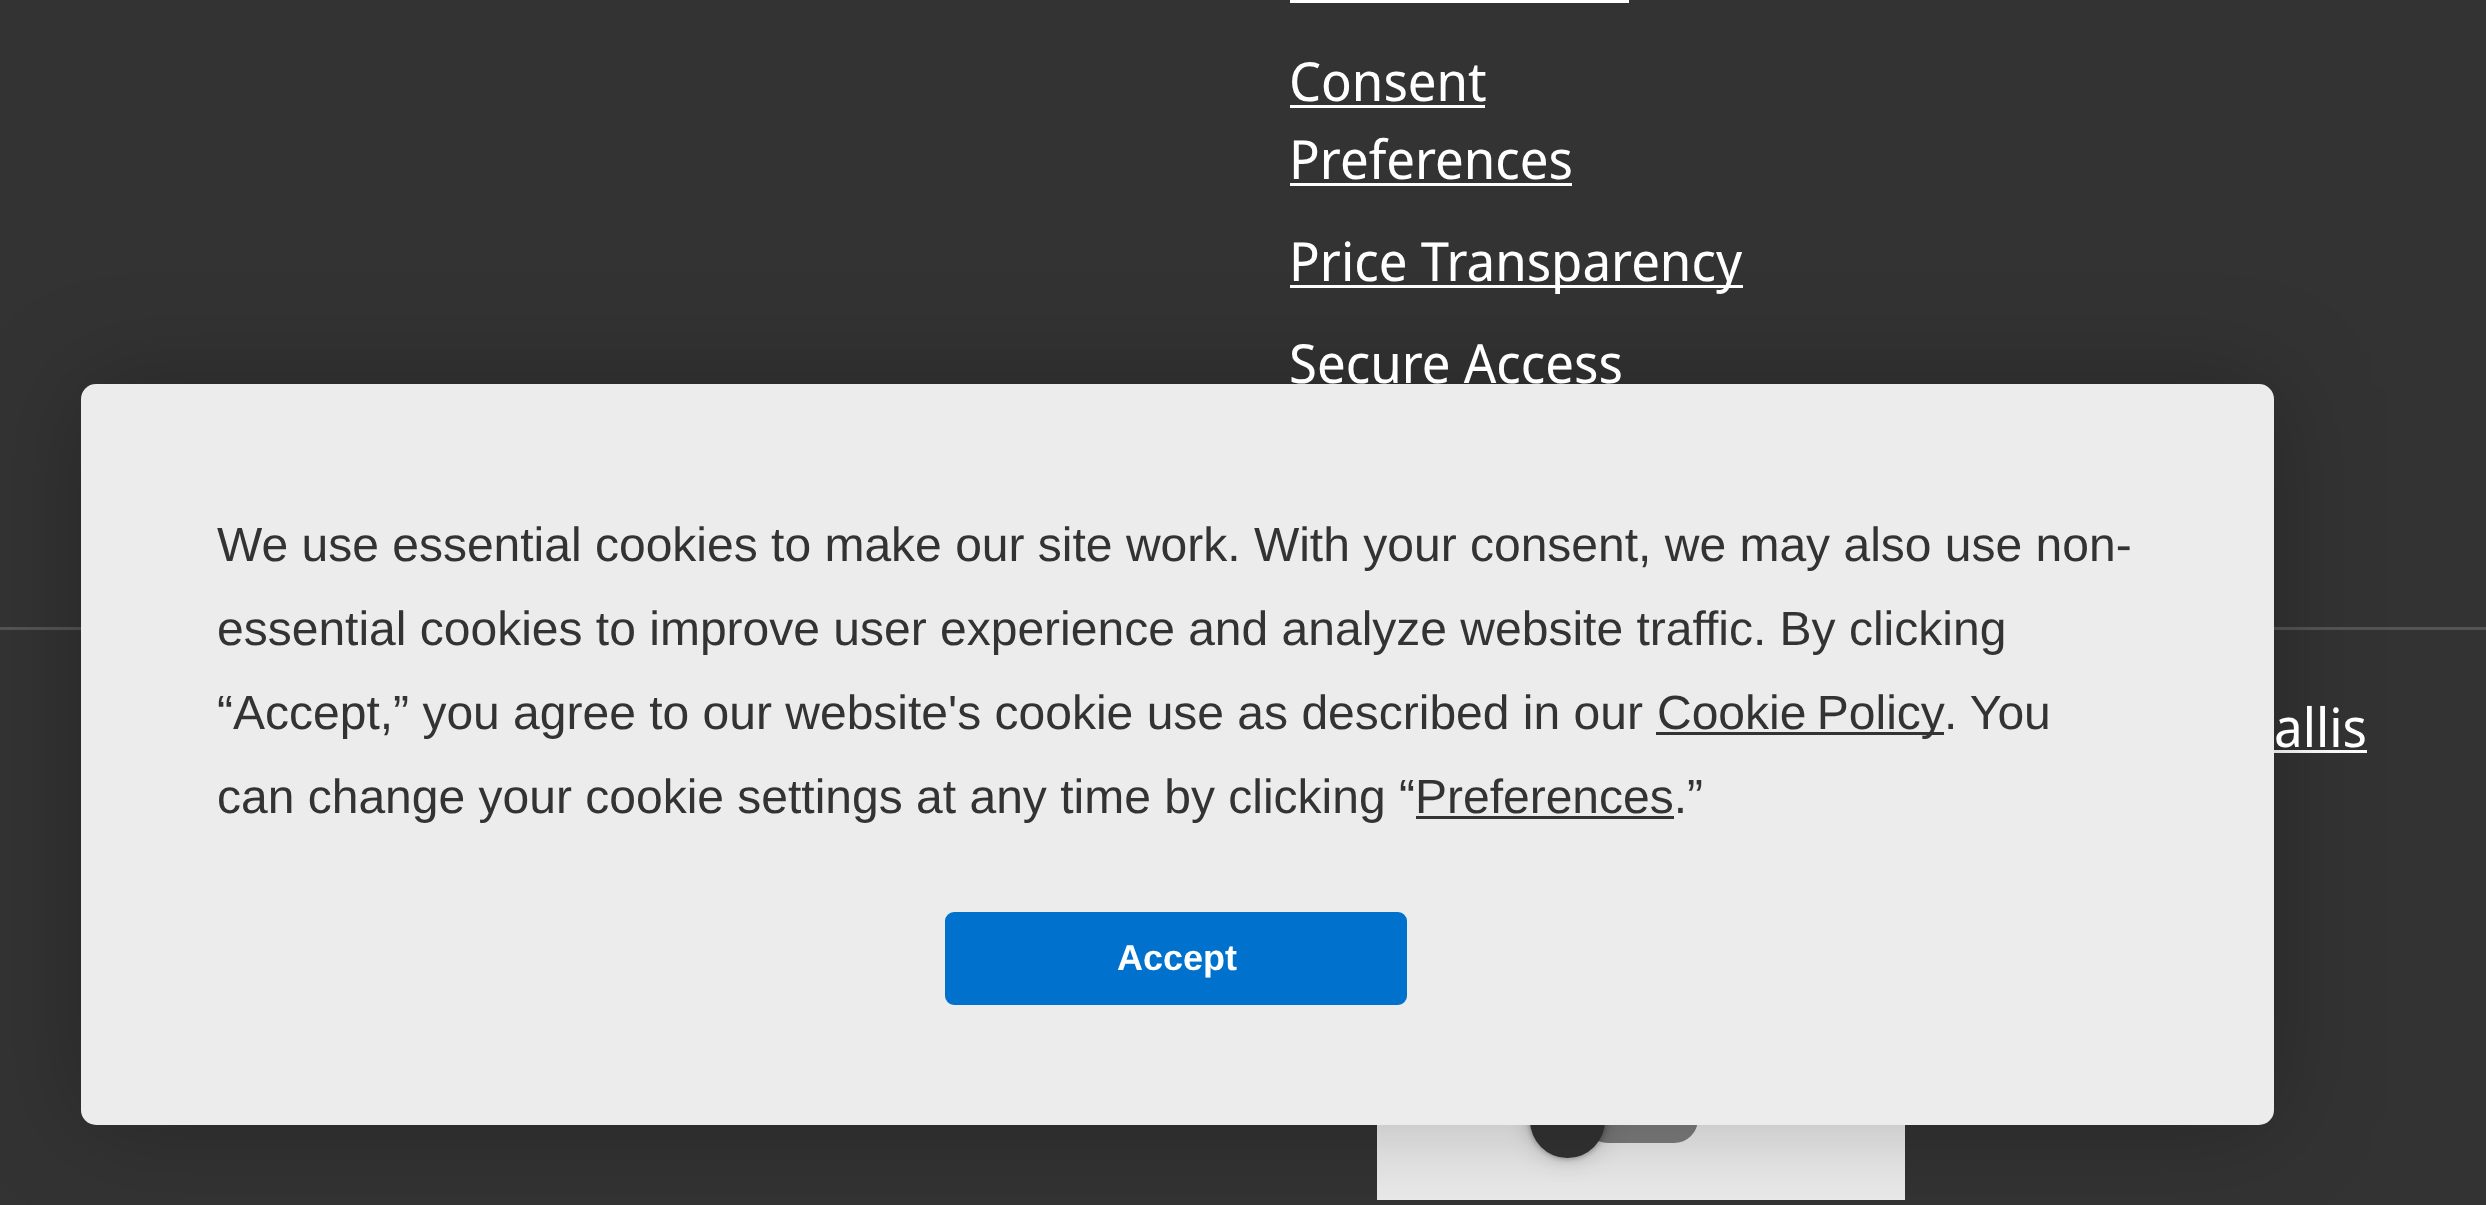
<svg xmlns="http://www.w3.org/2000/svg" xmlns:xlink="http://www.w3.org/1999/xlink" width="2486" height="1205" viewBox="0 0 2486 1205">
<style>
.cls-1{font:54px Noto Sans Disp;fill:#ffffff}
.cls-2{font:48px Liberation Sans;fill:#333333}
.cls-3{font:bold 36px Liberation Sans;fill:#ffffff}
</style>
<rect width="100%" height="100%" fill="#333333"/>
<rect fill="#ffffff" x="1290" y="0" width="339" height="3"/>
<rect fill="#ffffff" x="1290" y="105" width="195" height="3"/>
<rect fill="#ffffff" x="1290" y="183" width="282" height="3"/>
<rect fill="#ffffff" x="1290" y="285" width="453" height="3"/>
<rect fill="#545454" x="0" y="627" width="2486" height="3"/>
<rect fill="#ffffff" x="2274" y="750" width="93" height="3"/>
<rect fill="#ececec" x="1377" y="1125" width="528" height="75"/>
<rect fill="#7d7d7d" x="1584" y="1095" width="114" height="48" rx="24"/>
<rect fill="#000000" fill-opacity="0.4" filter="blur(3px)" x="1530" y="1083" width="75" height="75" rx="37.5"/>
<rect fill="#000000" fill-opacity="0.2" filter="blur(12px)" x="1530" y="1083" width="75" height="75" rx="37.5"/>
<circle fill="#333333" cx="1567.5" cy="1120.5" r="37.5"/>
<rect fill="#000000" fill-opacity="0.25" filter="blur(52.5px)" x="81" y="384" width="2193" height="741" rx="15"/>
<rect fill="#ececec" x="81" y="384" width="2193" height="741" rx="15"/>
<rect fill="#333333" x="1656" y="732" width="288" height="3"/>
<rect fill="#333333" x="1416" y="816" width="258" height="3"/>
<rect fill="#0072ce" stroke="#0072ce" stroke-width="3" x="946.5" y="913.5" width="459" height="90" rx="7.5"/>
<text class="cls-1"><tspan x="1289" y="101">Consent</tspan><tspan x="1289" y="179">Preferences</tspan><tspan x="1289" y="281">Price Transparency</tspan><tspan x="1289" y="383">Secure Access</tspan></text>
<text class="cls-1" x="2274" y="747">allis</text>
<text class="cls-2"><tspan x="217" y="561">We use essential cookies to make our site work. With your consent, we may also use non-</tspan><tspan x="217" y="645">essential cookies to improve user experience and analyze website traffic. By clicking</tspan><tspan x="217" y="729">“Accept,” you agree to our website's cookie use as described in our</tspan></text>
<text class="cls-2" x="1657" y="729" word-spacing="-3">Cookie Policy</text>
<text class="cls-2" x="1944" y="729">. You</text>
<text class="cls-2" x="217" y="813">can change your cookie settings at any time by clicking “Preferences.”</text>
<text class="cls-3" x="1117" y="970">Accept</text>
</svg>
